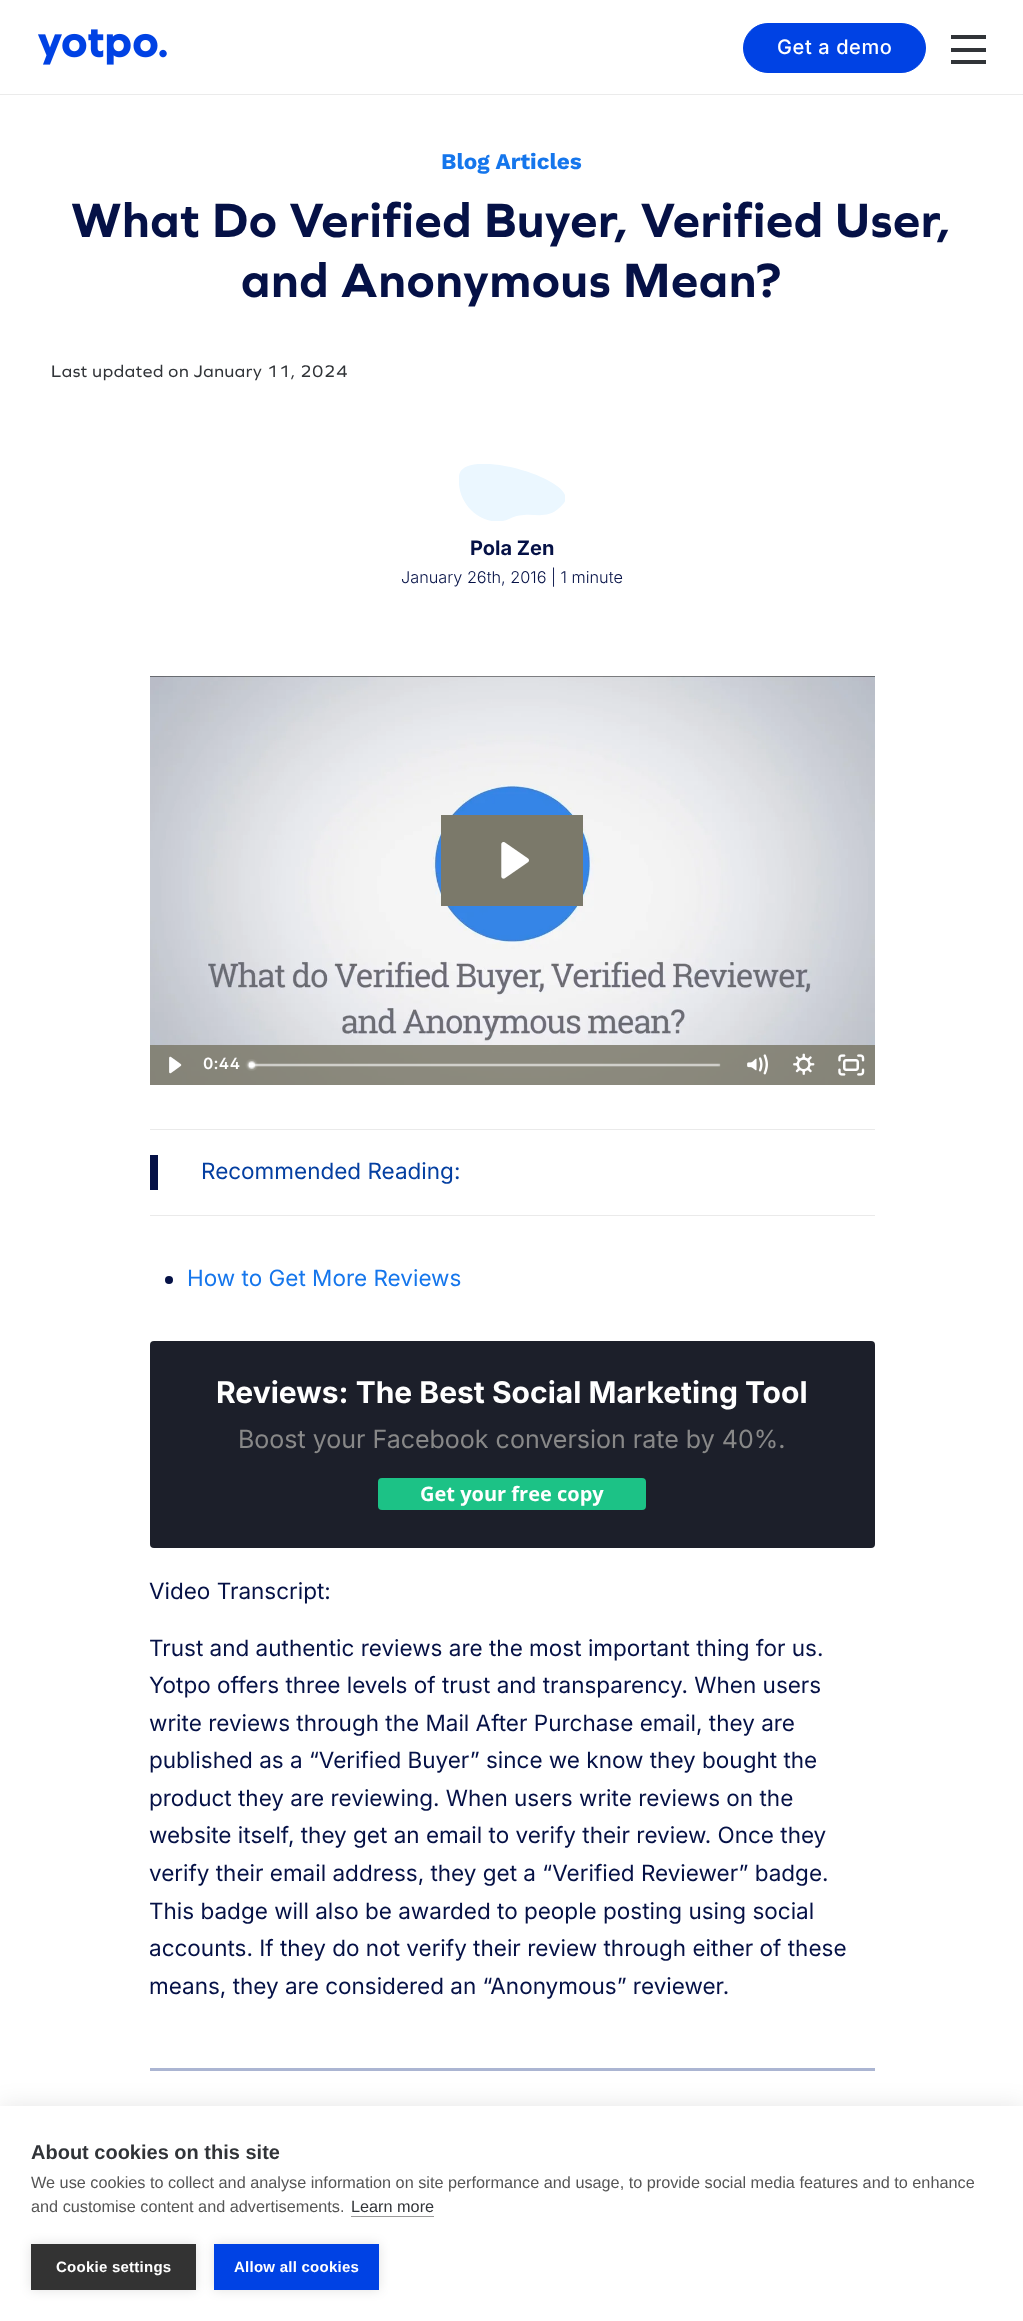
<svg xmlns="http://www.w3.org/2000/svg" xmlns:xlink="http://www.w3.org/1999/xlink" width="1023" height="2321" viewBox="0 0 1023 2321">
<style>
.cls-1{font:500 20px Inter;letter-spacing:0.6px;fill:#ffffff}
.cls-2{font:bold 22.5px Work Sans;fill:#1576ec}
.cls-3{font:bold 50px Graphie;letter-spacing:0.6px;fill:#051146}
.cls-4{font:17.5px Graphie;letter-spacing:0.6px;fill:#313438}
.cls-5{font:bold 20px Inter;fill:#051146}
.cls-6{font:300 16.25px Inter;fill:#051146}
.cls-7{font:600 15.5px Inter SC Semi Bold;letter-spacing:0.5px;fill:#ffffff}
.cls-8{font:22.5px Inter;fill:#043fa1}
.cls-9{font:22.5px Inter;fill:#1576ec}
.cls-10{font:bold 30px Inter;fill:#ffffff}
.cls-11{font:25px Inter;fill:#888888}
.cls-12{font:bold 20px Open Sans;fill:#ffffff}
.cls-13{font:22.5px Inter;fill:#051146}
.cls-14{font:bold 20px Liberation Sans;fill:#313438}
.cls-15{font:16.25px Liberation Sans;fill:#555555}
.cls-16{font:16.25px Liberation Sans;fill:#313438}
.cls-17{font:bold 15px Liberation Sans;letter-spacing:0.25px;fill:#ffffff}
</style>
<defs>
<clipPath id="clip1"><rect x="459" y="464" width="106" height="57"/></clipPath>
</defs>
<rect width="100%" height="100%" fill="#ffffff"/>
<rect fill="#ebebeb" x="0" y="94" width="1023" height="1"/>
<image xlink:href="image0.png" x="38" y="29" width="129" height="36"/>
<rect fill="#0042e4" stroke="#0042e4" x="743.5" y="23.5" width="182" height="49" rx="24.5"/>
<rect fill="#313438" x="951" y="35" width="35" height="4"/>
<rect fill="#313438" x="951" y="48" width="35" height="4"/>
<rect fill="#313438" x="951" y="60" width="35" height="4"/>
<g clip-path="url(#clip1)">
<path fill="#ebf7ff" fill-rule="evenodd" d="M459 476C456 508 487 529 509 519C532 508 546 525 564 503C581 480 462 445 459 476Z"/>
</g>
<rect fill="#000000" x="150" y="676" width="725" height="1"/>
<image xlink:href="image1.png" x="150" y="676" width="725" height="409"/>
<rect fill="#7b796a" x="441" y="815" width="142" height="91"/>
<image xlink:href="image2.png" x="501" y="842" width="28" height="37"/>
<rect fill="#7b796a" fill-opacity="0.85" x="150" y="1045" width="725" height="40"/>
<image xlink:href="image3.png" x="169" y="1056" width="13" height="18"/>
<image xlink:href="image4.png" x="245" y="1059" width="476" height="12"/>
<image xlink:href="image5.png" x="747" y="1054" width="21" height="21"/>
<image xlink:href="image6.png" x="793" y="1053" width="22" height="22"/>
<image xlink:href="image7.png" x="838" y="1054" width="27" height="22"/>
<rect fill="#eaeaea" x="150" y="1129" width="725" height="1"/>
<rect fill="#eaeaea" x="150" y="1215" width="725" height="1"/>
<rect fill="#051146" x="150" y="1155" width="8" height="35"/>
<circle fill="#051146" cx="169" cy="1280" r="4"/>
<rect fill="#1c1f2a" x="150" y="1341" width="725" height="207" rx="4"/>
<rect fill="#1cc286" x="378" y="1478" width="268" height="32" rx="4"/>
<rect fill="#abb5d2" x="150" y="2068" width="725" height="3"/>
<rect fill="#000000" fill-opacity="0.1" filter="blur(12.5px)" x="0" y="2106" width="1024" height="215"/>
<rect fill="#ffffff" x="0" y="2106" width="1023" height="215"/>
<rect fill="#999999" x="351" y="2216" width="83" height="1"/>
<rect fill="#000000" fill-opacity="0.12" filter="blur(6px)" x="31" y="2244" width="165" height="46"/>
<rect fill="#333333" x="31" y="2244" width="165" height="46"/>
<rect fill="#000000" fill-opacity="0.12" filter="blur(6px)" x="214" y="2244" width="165" height="46"/>
<rect fill="#0042e4" x="214" y="2244" width="165" height="46"/>
<text class="cls-1" x="777" y="54">Get a demo</text>
<text class="cls-2" x="441" y="169">Blog Articles</text>
<text class="cls-3" x="71" y="237">What Do Verified Buyer, Verified User,</text>
<text class="cls-3" x="241" y="297">and Anonymous Mean?</text>
<text class="cls-4" x="51" y="377">Last updated on January 11, 2024</text>
<text class="cls-5" x="470" y="555">Pola Zen</text>
<text class="cls-6" x="401" y="583">January 26th, 2016 | 1 minute</text>
<text class="cls-7" x="203" y="1069">0:44</text>
<text class="cls-8" x="201" y="1179">Recommended Reading:</text>
<text class="cls-9" x="187" y="1286">How to Get More Reviews</text>
<text class="cls-10" x="216" y="1403">Reviews: The Best Social Marketing Tool</text>
<text class="cls-11" x="238" y="1448">Boost your Facebook conversion rate by 40%.</text>
<text class="cls-12" x="420" y="1501">Get your free copy</text>
<text class="cls-13" x="149" y="1599">Video Transcript:</text>
<text class="cls-13"><tspan x="149" y="1656">Trust and authentic reviews are the most important thing for us.</tspan><tspan x="149" y="1693">Yotpo offers three levels of trust and transparency. When users</tspan><tspan x="149" y="1731">write reviews through the Mail After Purchase email, they are</tspan><tspan x="149" y="1768">published as a “Verified Buyer” since we know they bought the</tspan><tspan x="149" y="1806">product they are reviewing. When users write reviews on the</tspan><tspan x="149" y="1843">website itself, they get an email to verify their review. Once they</tspan><tspan x="149" y="1881">verify their email address, they get a “Verified Reviewer” badge.</tspan><tspan x="149" y="1919">This badge will also be awarded to people posting using social</tspan><tspan x="149" y="1956">accounts. If they do not verify their review through either of these</tspan><tspan x="149" y="1994">means, they are considered an “Anonymous” reviewer.</tspan></text>
<text class="cls-14" x="31" y="2159">About cookies on this site</text>
<text class="cls-15"><tspan x="31" y="2188">We use cookies to collect and analyse information on site performance and usage, to provide social media features and to enhance</tspan><tspan x="31" y="2212">and customise content and advertisements.</tspan></text>
<text class="cls-16" x="351" y="2212">Learn more</text>
<text class="cls-17" x="56" y="2272">Cookie settings</text>
<text class="cls-17" x="234" y="2272">Allow all cookies</text>
</svg>
